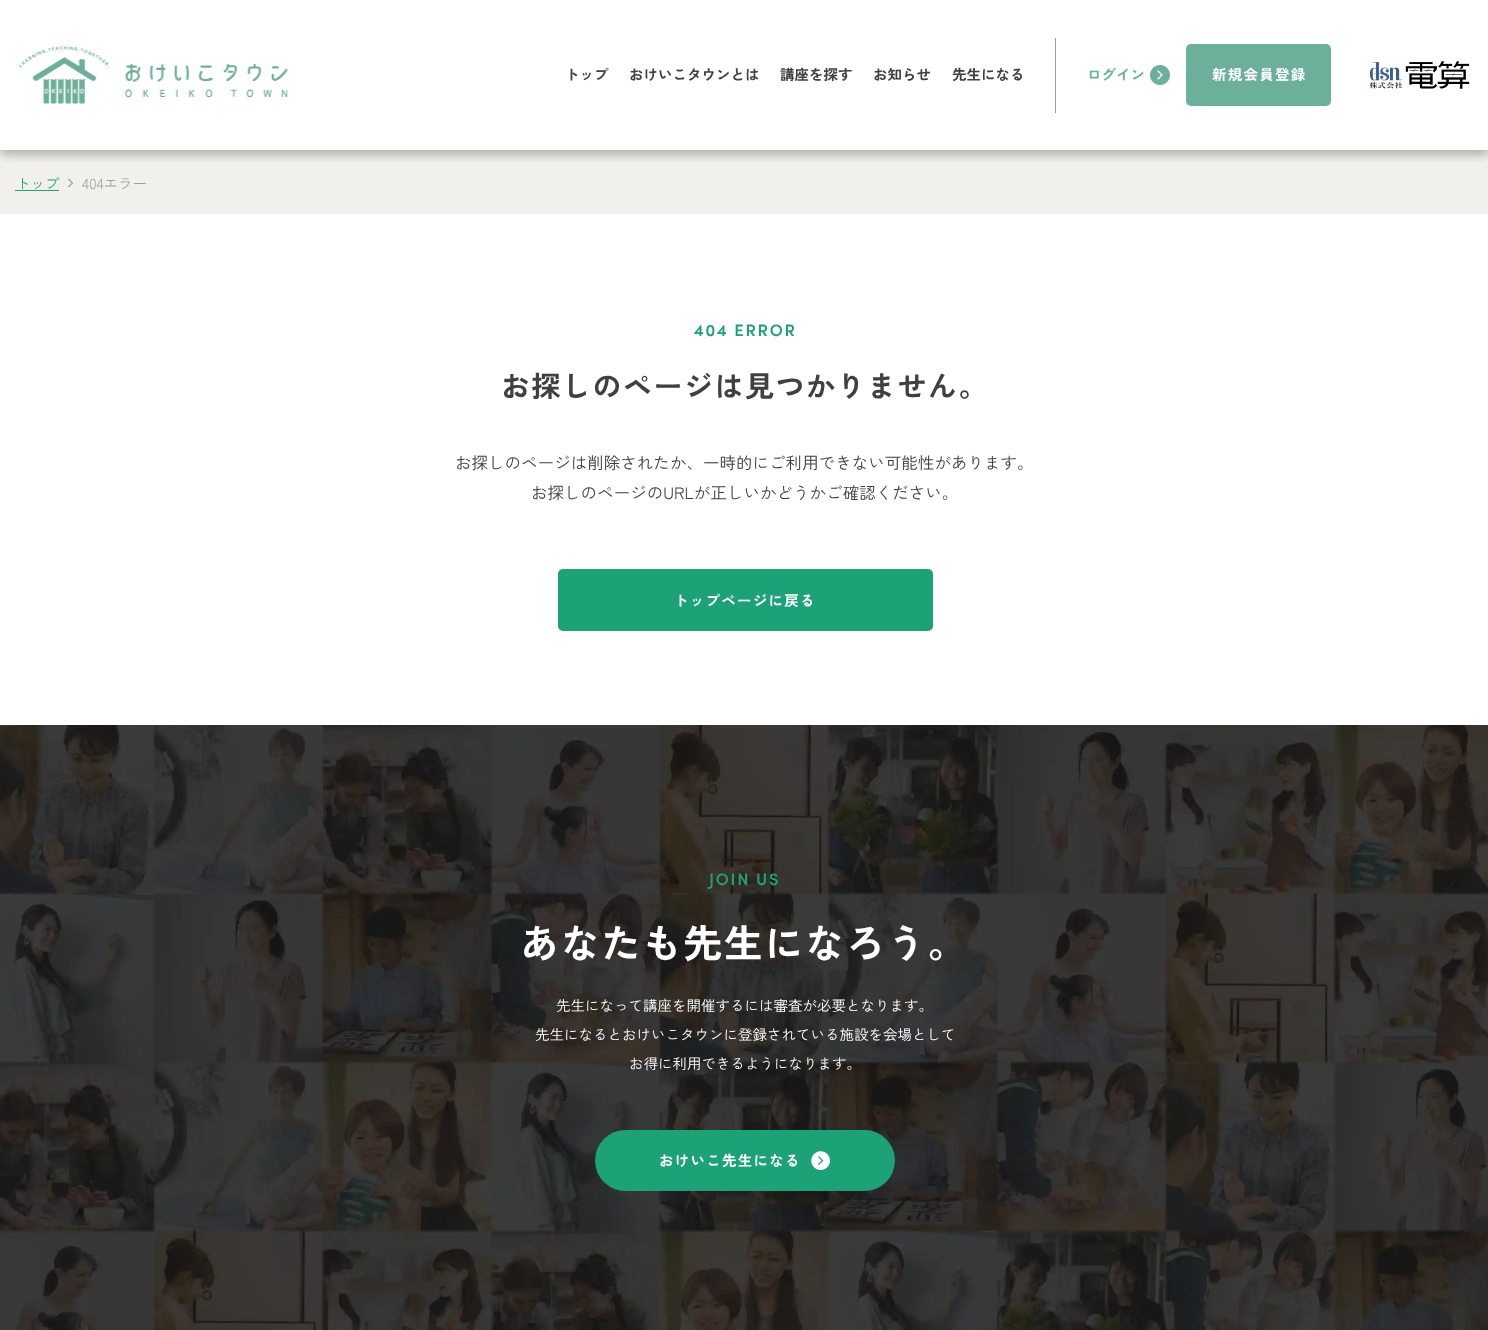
<svg xmlns="http://www.w3.org/2000/svg" xmlns:xlink="http://www.w3.org/1999/xlink" width="1488" height="1330" viewBox="0 0 1488 1330">
<style>
.cls-1{font:bold 14.5px Zen Kaku Gothic New;fill:#404040}
.cls-2{font:bold 14.5px Zen Kaku Gothic New;fill:#6caf9a}
.cls-3{font:bold 14.5px Zen Kaku Gothic New;letter-spacing:1.25px;fill:#ffffff}
.cls-4{font:14.5px Zen Kaku Gothic New;fill:#1da277}
.cls-5{font:14.5px Zen Kaku Gothic New;fill:#9f9f9f}
.cls-6{font:600 16.55px Sofia;letter-spacing:1.75px;fill:#1da277}
.cls-7{font:bold 29px Zen Kaku Gothic New;letter-spacing:1.5px;fill:#404040}
.cls-8{font:16.55px Zen Kaku Gothic New;fill:#404040}
.cls-9{font:bold 39.25px Zen Kaku Gothic New;letter-spacing:1.5px;fill:#ffffff}
.cls-10{font:14.5px Zen Kaku Gothic New;fill:#ffffff}
</style>
<defs>
<clipPath id="clip1"><rect x="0" y="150" width="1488" height="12"/></clipPath>
</defs>
<rect width="100%" height="100%" fill="#ffffff"/>
<rect fill="#f1f0eb" x="0" y="150" width="1488" height="64"/>
<g clip-path="url(#clip1)">
<rect fill="#000000" fill-opacity="0.31" filter="blur(5.5px)" x="0" y="4" width="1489" height="150"/>
</g>
<image xlink:href="image0.png" x="18" y="46" width="270" height="58"/>
<rect fill="#9f9f9f" x="1055" y="38" width="1" height="75"/>
<image xlink:href="image1.png" x="1150" y="65" width="20" height="20"/>
<rect fill="#6caf9a" x="1186" y="44" width="145" height="62" rx="5"/>
<image xlink:href="image2.png" x="1369" y="61" width="101" height="28"/>
<rect fill="#1da277" x="15" y="190" width="44" height="1"/>
<path fill="#9f9f9f" d="M69 178.5L73 183L72.5 184L68 179.5Z"/>
<path fill="#9f9f9f" d="M72.5 182L73 183L69 187.5L68 186.5Z"/>
<rect fill="#1da277" x="558" y="569" width="375" height="62" rx="5"/>
<image xlink:href="image3.png" x="0" y="725" width="1488" height="605"/>
<rect fill="#1da277" x="595" y="1130" width="300" height="61" rx="30.5"/>
<image xlink:href="image4.png" x="811" y="1151" width="19" height="19"/>
<text class="cls-1" x="565" y="80">トップ</text>
<text class="cls-1" x="629" y="80">おけいこタウンとは</text>
<text class="cls-1" x="780" y="80">講座を探す</text>
<text class="cls-1" x="873" y="80">お知らせ</text>
<text class="cls-1" x="952" y="80">先生になる</text>
<text class="cls-2" x="1087" y="80">ログイン</text>
<text class="cls-3" x="1212" y="80">新規会員登録</text>
<text class="cls-4" x="16" y="189">トップ</text>
<text class="cls-5" x="82" y="189">404エラー</text>
<text class="cls-6" x="694" y="336">404 ERROR</text>
<text class="cls-7" x="501" y="397">お探しのページは見つかりません。</text>
<text class="cls-8" x="455" y="469">お探しのページは削除されたか、一時的にご利用できない可能性があります。</text>
<text class="cls-8" x="531" y="499">お探しのページのURLが正しいかどうかご確認ください。</text>
<text class="cls-3" x="674" y="606">トップページに戻る</text>
<text class="cls-6" x="709" y="885">JOIN US</text>
<text class="cls-9" x="520" y="958">あなたも先生になろう。</text>
<text class="cls-10" x="556" y="1011">先生になって講座を開催するには審査が必要となります。</text>
<text class="cls-10" x="535" y="1040">先生になるとおけいこタウンに登録されている施設を会場として</text>
<text class="cls-10" x="629" y="1069">お得に利用できるようになります。</text>
<text class="cls-3" x="659" y="1166">おけいこ先生になる</text>
</svg>
